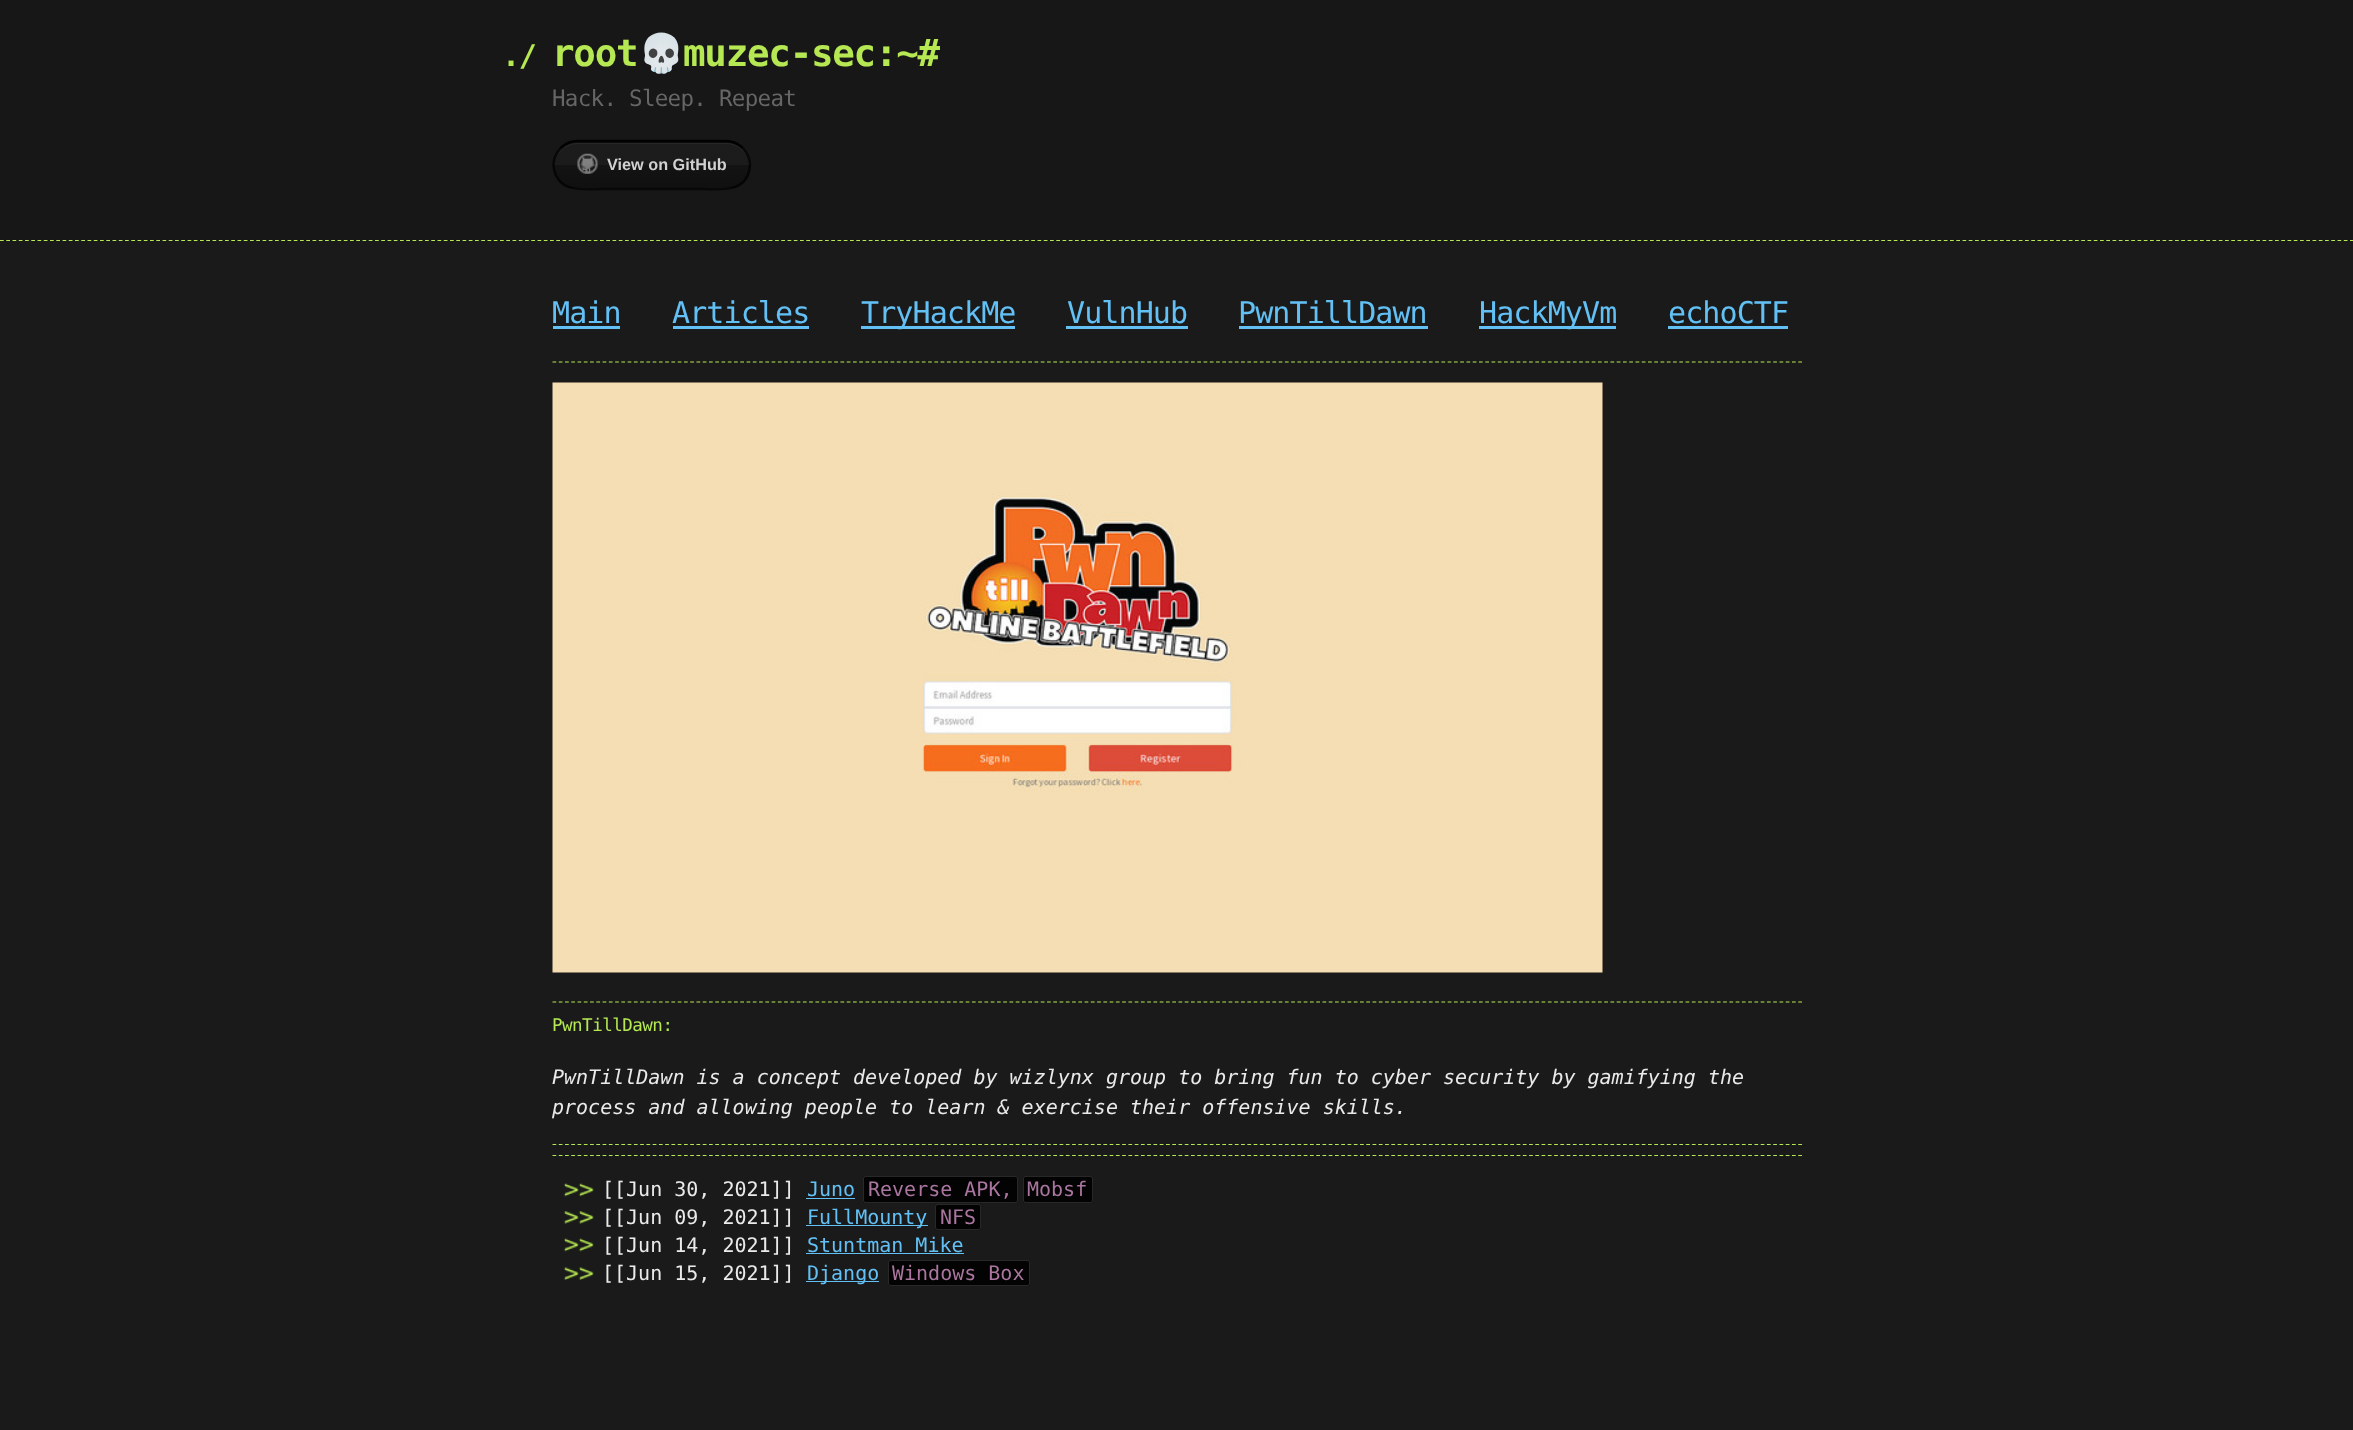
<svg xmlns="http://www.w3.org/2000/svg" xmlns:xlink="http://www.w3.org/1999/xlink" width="2353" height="1430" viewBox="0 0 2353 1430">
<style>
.cls-1{font:bold 30px DejaVu Sans Mono;letter-spacing:-1.25px;fill:#b5e853}
.cls-2{font:bold 37.5px DejaVu Sans Mono;letter-spacing:-1.25px;fill:#b5e853}
.cls-3{font:bold 37.5px Noto Color Emoji;letter-spacing:-1.25px;fill:#b5e853}
.cls-4{font:22.5px DejaVu Sans Mono;letter-spacing:-0.7px;fill:#666666}
.cls-5{font:bold 16.25px Liberation Sans;fill:#d1d1d1}
.cls-6{font:30px DejaVu Sans Mono;letter-spacing:-0.9px;fill:#63c0f5}
.cls-7{font:17.5px DejaVu Sans Mono;letter-spacing:-0.5px;fill:#b5e853}
.cls-8{font:italic 20px DejaVu Sans Mono;fill:#eaeaea}
.cls-9{font:20px DejaVu Sans Mono;fill:#eaeaea}
.cls-10{font:20px DejaVu Sans Mono;fill:#63c0f5}
.cls-11{font:20px DejaVu Sans Mono;fill:#aa759f}
</style>
<defs>
<clipPath id="clip1"><rect x="553" y="140" width="198" height="50" rx="25"/></clipPath>
<linearGradient id="g1" gradientUnits="userSpaceOnUse" x1="652" y1="97" x2="652" y2="143"><stop offset="0" stop-color="#1c1c1c"/><stop offset="0.5" stop-color="#1b1b1b"/><stop offset="0.5" stop-color="#131313"/><stop offset="1" stop-color="#101010"/></linearGradient>
<linearGradient id="g2" gradientUnits="userSpaceOnUse" x1="652" y1="142" x2="652" y2="188"><stop offset="0" stop-color="#1c1c1c"/><stop offset="0.5" stop-color="#1b1b1b"/><stop offset="0.5" stop-color="#131313"/><stop offset="1" stop-color="#101010"/></linearGradient>
<linearGradient id="g3" gradientUnits="userSpaceOnUse" x1="652" y1="188" x2="652" y2="233"><stop offset="0" stop-color="#1c1c1c"/><stop offset="0.5" stop-color="#1b1b1b"/><stop offset="0.5" stop-color="#131313"/><stop offset="1" stop-color="#101010"/></linearGradient>
</defs>
<rect width="100%" height="100%" fill="#1a1a1a"/>
<rect fill="#171717" x="0" y="0" width="2353" height="241"/>
<path fill="none" stroke="#b5e853" stroke-width="1.2" stroke-dasharray="3.75 2.5" d="M0 240.5H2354"/>
<g clip-path="url(#clip1)">
<rect fill="url(#g1)" x="566" y="140" width="172" height="3"/>
<rect fill="url(#g2)" x="553" y="143" width="198" height="45"/>
<rect fill="url(#g3)" x="568" y="188" width="168" height="2"/>
</g>
<path fill="#272727" d="M578 144H726C739 144 749 154 749 166C749 153 739 143 726 143H578C565 143 555 153 555 166C555 154 565 144 578 144Z"/>
<path fill="none" stroke="#000000" stroke-width="2.5" d="M560.5 148C565 144 571 141 577.5 141H726C732.5 141 738.5 144 743 148"/>
<path fill="none" stroke="#000000" stroke-opacity="0.7" stroke-width="2.5" d="M743 148C748.5 154 751 162 749.5 169.5C745 193.5 719 189 701.5 189H602.5C584.5 189 559 193.5 554 169.5C552.5 162 555 154 560.5 148"/>
<image xlink:href="image0.png" x="577" y="153" width="21" height="21"/>
<rect fill="#63c0f5" x="553" y="326" width="67" height="3"/>
<rect fill="#63c0f5" x="673" y="326" width="136" height="3"/>
<rect fill="#63c0f5" x="861" y="326" width="154" height="3"/>
<rect fill="#63c0f5" x="1066" y="326" width="122" height="3"/>
<rect fill="#63c0f5" x="1239" y="326" width="189" height="3"/>
<rect fill="#63c0f5" x="1479" y="326" width="137" height="3"/>
<rect fill="#63c0f5" x="1668" y="326" width="120" height="3"/>
<path fill="none" stroke="#b5e853" stroke-width="1.2" stroke-dasharray="3.75 2.51" d="M552.5 362H1802.5"/>
<image xlink:href="image1.png" x="552" y="382" width="1051" height="591"/>
<path fill="none" stroke="#b5e853" stroke-width="1.2" stroke-dasharray="3.75 2.51" d="M552.5 1002H1802.5"/>
<path fill="none" stroke="#b5e853" stroke-width="1.2" stroke-dasharray="3.75 2.51" d="M552.5 1144.5H1802.5"/>
<path fill="none" stroke="#b5e853" stroke-width="1.2" stroke-dasharray="3.75 2.51" d="M552.5 1155.5H1802.5"/>
<image xlink:href="image2.png" x="563" y="1183" width="31" height="14"/>
<rect fill="#63c0f5" x="806" y="1198" width="49" height="1"/>
<rect fill="#030303" x="863" y="1176" width="155" height="27" rx="2.5"/>
<rect fill="none" stroke="#ffffff" stroke-opacity="0.15" x="863.5" y="1176.5" width="154" height="26" rx="2"/>
<rect fill="#030303" x="1023" y="1176" width="70" height="27" rx="2.5"/>
<rect fill="none" stroke="#ffffff" stroke-opacity="0.15" x="1023.5" y="1176.5" width="69" height="26" rx="2"/>
<image xlink:href="image3.png" x="563" y="1211" width="31" height="13"/>
<rect fill="#63c0f5" x="806" y="1225" width="122" height="1"/>
<rect fill="#030303" x="935" y="1204" width="46" height="26" rx="2.5"/>
<rect fill="none" stroke="#ffffff" stroke-opacity="0.15" x="935.5" y="1204.5" width="45" height="25" rx="2"/>
<image xlink:href="image2.png" x="563" y="1238" width="31" height="14"/>
<rect fill="#63c0f5" x="806" y="1253" width="158" height="1"/>
<image xlink:href="image4.png" x="563" y="1267" width="31" height="13"/>
<rect fill="#63c0f5" x="806" y="1281" width="73" height="1"/>
<rect fill="#030303" x="888" y="1260" width="142" height="26" rx="2.5"/>
<rect fill="none" stroke="#ffffff" stroke-opacity="0.15" x="888.5" y="1260.5" width="141" height="25" rx="2"/>
<text class="cls-1" x="502" y="66">./</text>
<text class="cls-2" x="552" y="66">root</text>
<text class="cls-3" x="638" y="66">💀</text>
<text class="cls-2" x="683" y="66">muzec-sec:~#</text>
<text class="cls-4" x="552" y="106">Hack. Sleep. Repeat</text>
<text class="cls-5" x="607" y="170">View on GitHub</text>
<text class="cls-6" x="552" y="323">Main</text>
<text class="cls-6" x="672" y="323">Articles</text>
<text class="cls-6" x="861" y="323">TryHackMe</text>
<text class="cls-6" x="1067" y="323">VulnHub</text>
<text class="cls-6" x="1238" y="323">PwnTillDawn</text>
<text class="cls-6" x="1479" y="323">HackMyVm</text>
<text class="cls-6" x="1668" y="323">echoCTF</text>
<text class="cls-7" x="552" y="1031">PwnTillDawn:</text>
<text class="cls-8"><tspan x="552" y="1084">PwnTillDawn is a concept developed by wizlynx group to bring fun to cyber security by gamifying the</tspan><tspan x="552" y="1114">process and allowing people to learn &amp; exercise their offensive skills.</tspan></text>
<text class="cls-9" x="602" y="1196">[[Jun 30, 2021]]</text>
<text class="cls-10" x="807" y="1196">Juno</text>
<text class="cls-11" x="868" y="1196">Reverse APK,</text>
<text class="cls-11" x="1027" y="1196">Mobsf</text>
<text class="cls-9" x="602" y="1224">[[Jun 09, 2021]]</text>
<text class="cls-10" x="807" y="1224">FullMounty</text>
<text class="cls-11" x="940" y="1224">NFS</text>
<text class="cls-9" x="602" y="1252">[[Jun 14, 2021]]</text>
<text class="cls-10" x="807" y="1252">Stuntman Mike</text>
<text class="cls-9" x="602" y="1280">[[Jun 15, 2021]]</text>
<text class="cls-10" x="807" y="1280">Django</text>
<text class="cls-11" x="892" y="1280">Windows Box</text>
</svg>
